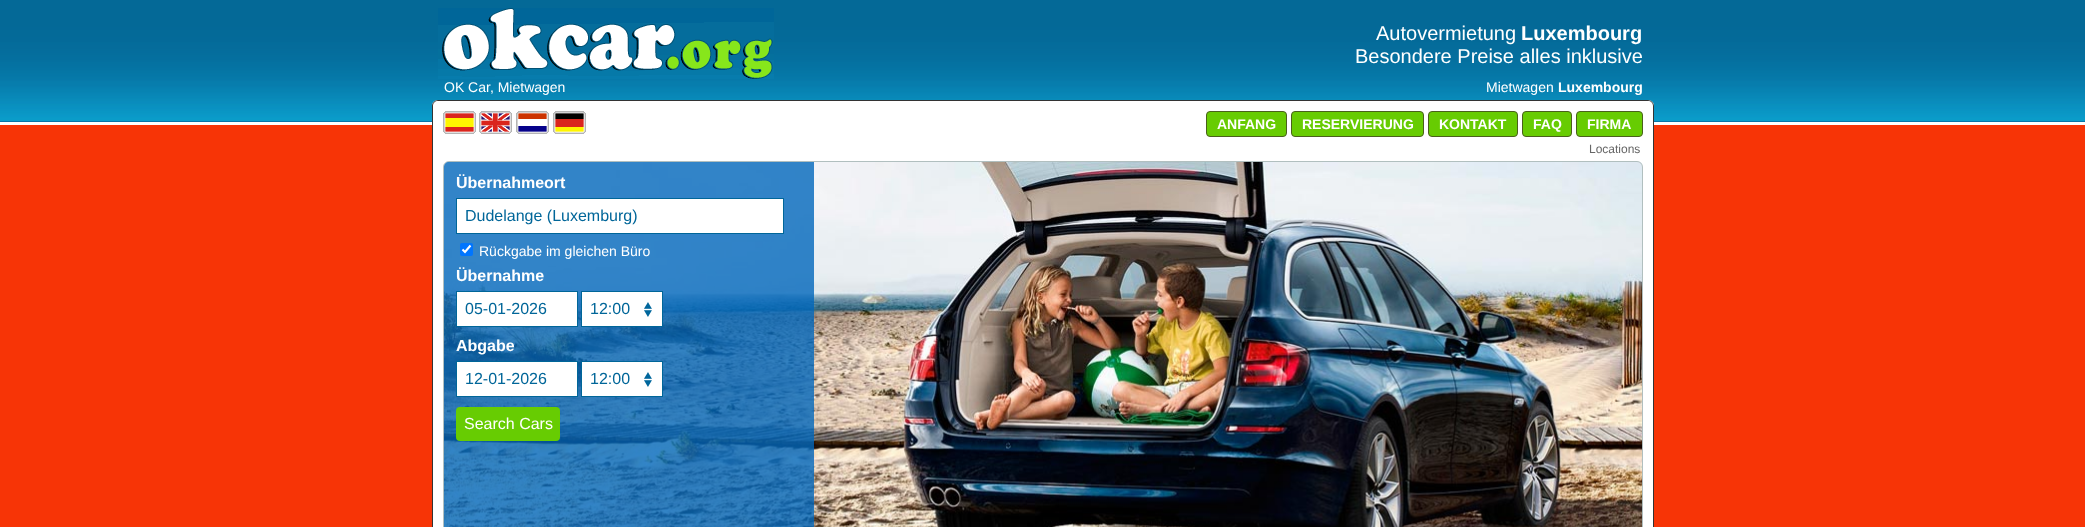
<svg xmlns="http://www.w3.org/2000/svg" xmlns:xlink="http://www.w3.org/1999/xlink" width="2085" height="527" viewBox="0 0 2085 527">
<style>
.cls-1{font:20px Liberation Sans;fill:#ffffff}
.cls-2{font:bold 20px Liberation Sans;fill:#ffffff}
.cls-3{font:14px Liberation Sans;fill:#ffffff}
.cls-4{font:bold 14px Liberation Sans;fill:#ffffff}
.cls-5{font:12px Liberation Sans;fill:#666666}
.cls-6{font:bold 16px Liberation Sans;fill:#ffffff}
.cls-7{font:16px Liberation Sans;fill:#006699}
.cls-8{font:16px Liberation Sans;fill:#ffffff}
</style>
<rect width="100%" height="100%" fill="#f73406"/>
<image xlink:href="image0.png" x="0" y="0" width="2085" height="125"/>
<image xlink:href="image1.png" x="438" y="8" width="336" height="71"/>
<path fill="#ffffff" d="M438 100H1648C1651.5 100 1654 102.5 1654 106V151H432V106C432 102.5 434.5 100 438 100Z"/>
<path fill="#333333" fill-rule="evenodd" d="M438 100H1648C1651 100 1654 103 1654 106V151H432V106C432 103 435 100 438 100ZM438 101H1648C1651 101 1653 103 1653 106V151H433V106C433 103 435 101 438 101Z"/>
<image xlink:href="image2.png" x="443" y="111" width="33" height="23"/>
<image xlink:href="image3.png" x="479" y="111" width="33" height="23"/>
<image xlink:href="image4.png" x="516" y="111" width="33" height="23"/>
<image xlink:href="image5.png" x="553" y="111" width="33" height="23"/>
<rect fill="#67cc02" stroke="#4a601c" x="1206.5" y="111.5" width="80" height="25" rx="3.5"/>
<rect fill="#67cc02" stroke="#4a601c" x="1291.5" y="111.5" width="132" height="25" rx="3.5"/>
<rect fill="#67cc02" stroke="#4a601c" x="1428.5" y="111.5" width="89" height="25" rx="3.5"/>
<rect fill="#67cc02" stroke="#4a601c" x="1522.5" y="111.5" width="49" height="25" rx="3.5"/>
<rect fill="#67cc02" stroke="#4a601c" x="1576.5" y="111.5" width="66" height="25" rx="3.5"/>
<rect fill="#ffffff" x="433" y="151" width="1220" height="376"/>
<path fill="#333333" fill-rule="evenodd" d="M432 151H1654V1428C1654 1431 1651 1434 1648 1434H438C435 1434 432 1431 432 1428ZM433 151H1653V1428C1653 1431 1651 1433 1648 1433H438C435 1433 433 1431 433 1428Z"/>
<image xlink:href="image6.png" x="444" y="162" width="1198" height="365"/>
<rect fill="none" stroke="#b1bfbf" x="443.5" y="161.5" width="1199" height="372" rx="5.5"/>
<path fill="#0066bb" fill-opacity="0.8" d="M449 162H814V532H449C446 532 444 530 444 527V167C444 164 446 162 449 162Z"/>
<rect fill="#ffffff" stroke="#006699" x="456.5" y="198.5" width="327" height="35"/>
<rect fill="#0075ff" x="460" y="243" width="13" height="13" rx="2"/>
<path fill="none" stroke="#ffffff" stroke-width="2.1" d="M462.5 249.5L465 252L470.5 245.5"/>
<rect fill="#ffffff" stroke="#006699" x="456.5" y="291.5" width="121" height="35"/>
<rect fill="#ffffff" x="582" y="292" width="80" height="34"/>
<image xlink:href="image7.png" x="644" y="302" width="8" height="15"/>
<rect fill="none" stroke="#006699" x="581.5" y="291.5" width="81" height="35"/>
<rect fill="#ffffff" stroke="#006699" x="456.5" y="361.5" width="121" height="35"/>
<rect fill="#ffffff" x="582" y="362" width="80" height="34"/>
<image xlink:href="image7.png" x="644" y="372" width="8" height="15"/>
<rect fill="none" stroke="#006699" x="581.5" y="361.5" width="81" height="35"/>
<rect fill="#67cc02" x="456" y="407" width="104" height="34" rx="4"/>
<text class="cls-1" x="1376" y="40">Autovermietung</text>
<text class="cls-2" x="1521" y="40">Luxembourg</text>
<text class="cls-1" x="1355" y="63">Besondere Preise alles inklusive</text>
<text class="cls-3" x="444" y="92">OK Car, Mietwagen</text>
<text class="cls-3" x="1486" y="92">Mietwagen</text>
<text class="cls-4" x="1558" y="92">Luxembourg</text>
<text class="cls-4" x="1217" y="129">ANFANG</text>
<text class="cls-4" x="1302" y="129">RESERVIERUNG</text>
<text class="cls-4" x="1439" y="129">KONTAKT</text>
<text class="cls-4" x="1533" y="129">FAQ</text>
<text class="cls-4" x="1587" y="129">FIRMA</text>
<text class="cls-5" x="1589" y="153">Locations</text>
<text class="cls-6" x="456" y="188">Übernahmeort</text>
<text class="cls-7" x="465" y="221">Dudelange (Luxemburg)</text>
<text class="cls-3" x="479" y="256">Rückgabe im gleichen Büro</text>
<text class="cls-6" x="456" y="281">Übernahme</text>
<text class="cls-7" x="465" y="314">05-01-2026</text>
<text class="cls-7" x="590" y="314">12:00</text>
<text class="cls-6" x="456" y="351">Abgabe</text>
<text class="cls-7" x="465" y="384">12-01-2026</text>
<text class="cls-7" x="590" y="384">12:00</text>
<text class="cls-8" x="464" y="429">Search Cars</text>
</svg>
